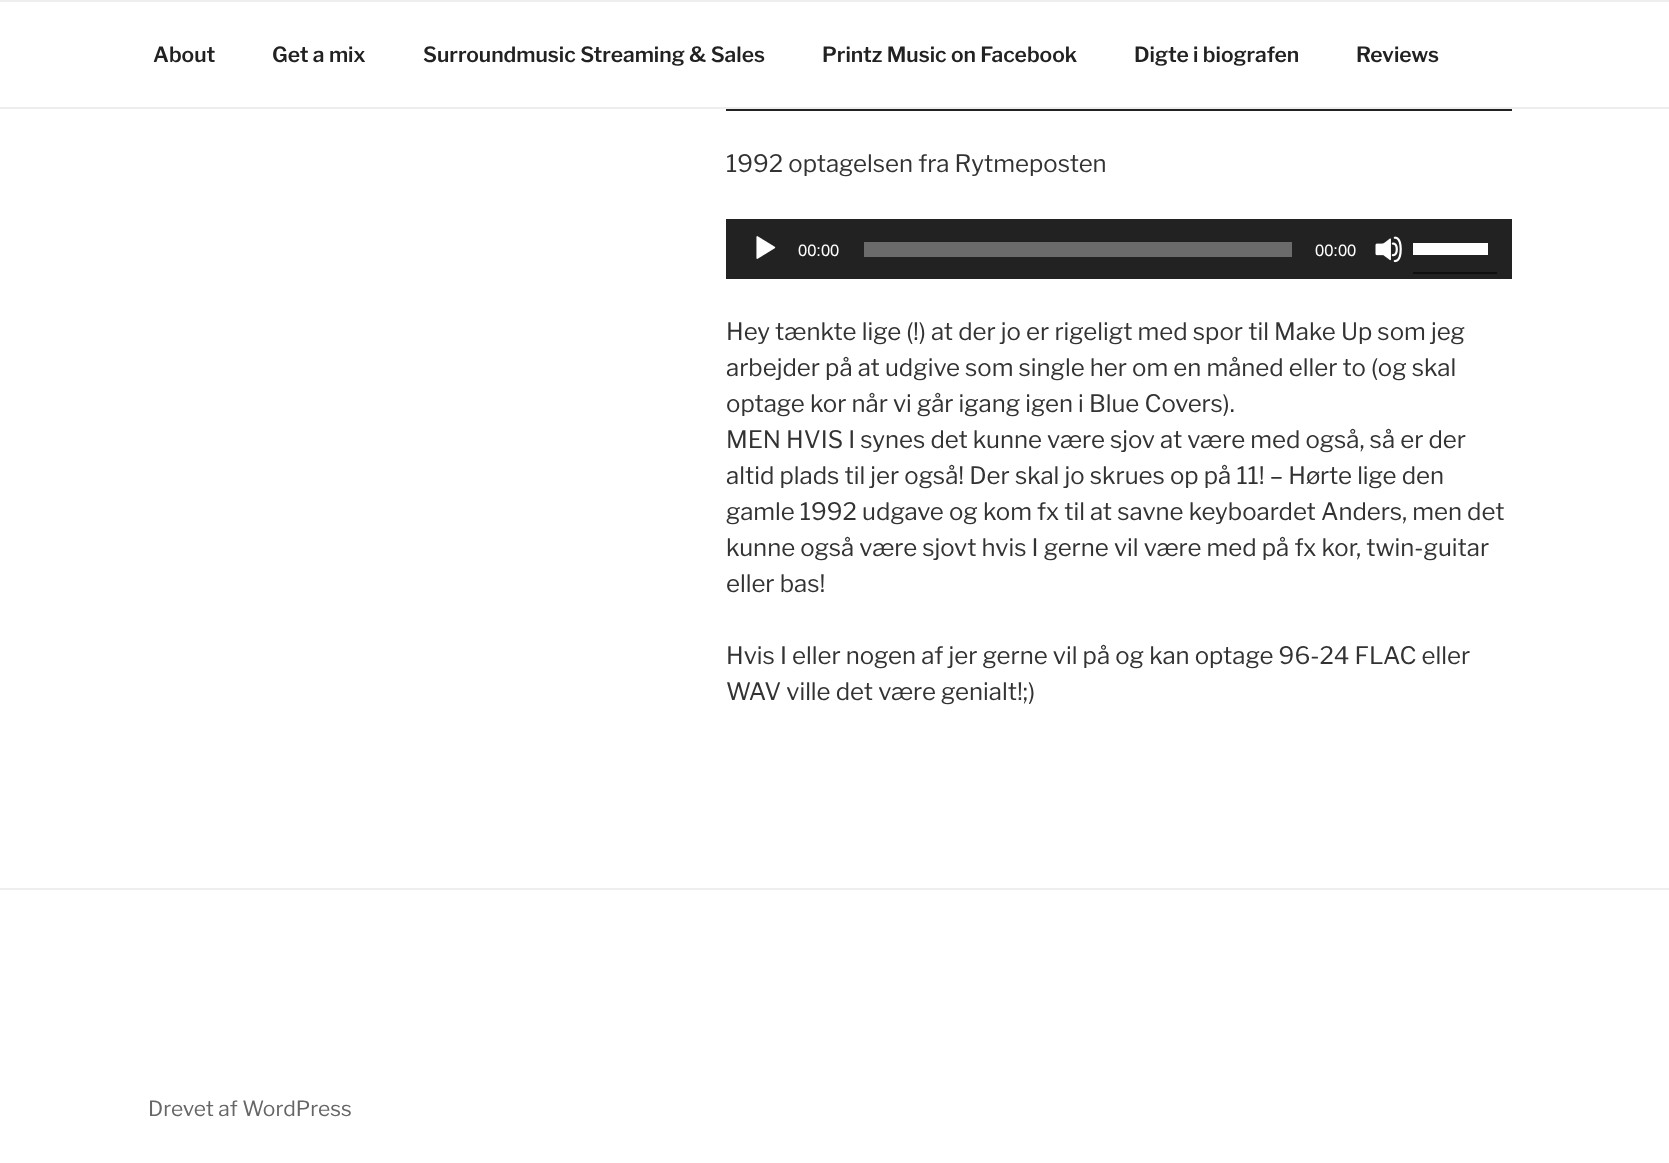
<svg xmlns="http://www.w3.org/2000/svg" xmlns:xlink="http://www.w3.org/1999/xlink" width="1669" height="1163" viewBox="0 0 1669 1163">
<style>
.cls-1{font:600 21px Libre Franklin;fill:#222222}
.cls-2{font:24px Libre Franklin;fill:#333333}
.cls-3{font:16.5px Liberation Sans;fill:#ffffff}
.cls-4{font:21px Libre Franklin;fill:#666666}
</style>
<rect width="100%" height="100%" fill="#ffffff"/>
<rect fill="#eeeeee" x="0" y="0" width="1669" height="2"/>
<rect fill="#eeeeee" x="0" y="107" width="1669" height="2"/>
<rect fill="#222222" x="726" y="109" width="786" height="2"/>
<rect fill="#222222" x="726" y="219" width="786" height="60"/>
<image xlink:href="image0.png" x="756" y="236" width="20" height="23"/>
<rect fill="#6b6b6b" x="864" y="242" width="428" height="15"/>
<image xlink:href="image1.png" x="1375" y="236" width="27" height="27"/>
<rect fill="#0f0f0f" x="1413" y="272" width="84" height="2"/>
<rect fill="#ffffff" x="1413" y="243" width="75" height="12"/>
<rect fill="#eeeeee" x="0" y="888" width="1669" height="2"/>
<text class="cls-1" x="153" y="62">About</text>
<text class="cls-1" x="272" y="62">Get a mix</text>
<text class="cls-1" x="423" y="62">Surroundmusic Streaming &amp; Sales</text>
<text class="cls-1" x="822" y="62">Printz Music on Facebook</text>
<text class="cls-1" x="1134" y="62">Digte i biografen</text>
<text class="cls-1" x="1356" y="62">Reviews</text>
<text class="cls-2" x="726" y="172">1992 optagelsen fra Rytmeposten</text>
<text class="cls-3" x="798" y="256">00:00</text>
<text class="cls-3" x="1315" y="256">00:00</text>
<text class="cls-2"><tspan x="726" y="340">Hey tænkte lige (!) at der jo er rigeligt med spor til Make Up som jeg</tspan><tspan x="726" y="376">arbejder på at udgive som single her om en måned eller to (og skal</tspan><tspan x="726" y="412">optage kor når vi går igang igen i Blue Covers).</tspan><tspan x="726" y="448">MEN HVIS I synes det kunne være sjov at være med også, så er der</tspan><tspan x="726" y="484">altid plads til jer også! Der skal jo skrues op på 11! – Hørte lige den</tspan><tspan x="726" y="520">gamle 1992 udgave og kom fx til at savne keyboardet Anders, men det</tspan><tspan x="726" y="556">kunne også være sjovt hvis I gerne vil være med på fx kor, twin-guitar</tspan><tspan x="726" y="592">eller bas!</tspan></text>
<text class="cls-2"><tspan x="726" y="664">Hvis I eller nogen af jer gerne vil på og kan optage 96-24 FLAC eller</tspan><tspan x="726" y="700">WAV ville det være genialt!;)</tspan></text>
<text class="cls-4" x="148" y="1116">Drevet af WordPress</text>
</svg>
